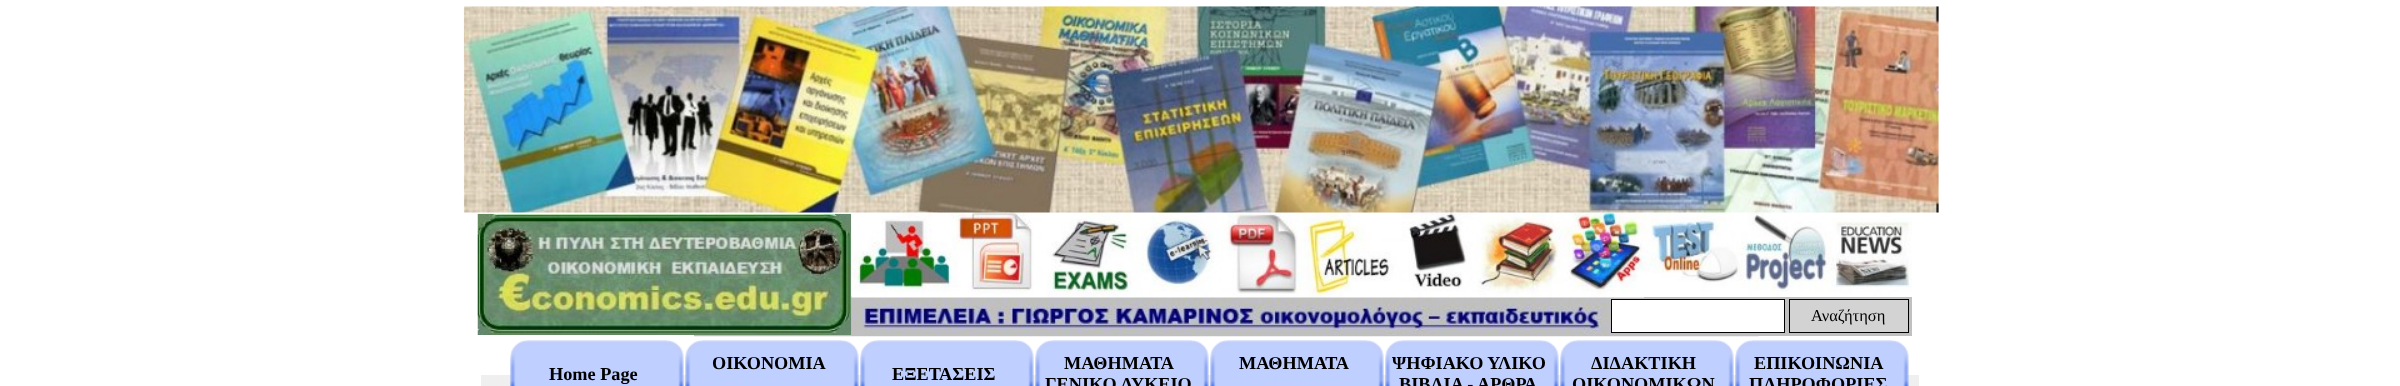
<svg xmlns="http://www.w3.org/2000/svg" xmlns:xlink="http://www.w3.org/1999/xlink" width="2400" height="386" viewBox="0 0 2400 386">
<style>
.cls-1{font:16.5px Liberation Serif;fill:#000000}
.cls-2{font:bold 18.25px Liberation Serif;fill:#000000}
</style>
<rect width="100%" height="100%" fill="#ffffff"/>
<image xlink:href="image3.png" x="693" y="296" width="1066" height="41"/>
<image xlink:href="image2.png" x="851" y="212" width="1061" height="86"/>
<image xlink:href="image0.png" x="463" y="6" width="1476" height="207"/>
<image xlink:href="image1.png" x="477" y="213" width="375" height="122"/>
<rect fill="#c0c0c0" x="1644" y="297" width="268" height="39"/>
<rect fill="#ffffff" stroke="#000000" x="1611.5" y="299.5" width="173" height="33"/>
<rect fill="#d3d3d3" stroke="#000000" x="1789.5" y="299.5" width="119" height="33"/>
<rect fill="#efefef" x="481" y="375" width="1438" height="11"/>
<image xlink:href="image4.png" x="510" y="340" width="174" height="46"/>
<image xlink:href="image5.png" x="685" y="340" width="174" height="46"/>
<image xlink:href="image4.png" x="860" y="340" width="174" height="46"/>
<image xlink:href="image4.png" x="1035" y="340" width="174" height="46"/>
<image xlink:href="image4.png" x="1210" y="340" width="174" height="46"/>
<image xlink:href="image4.png" x="1385" y="340" width="174" height="46"/>
<image xlink:href="image5.png" x="1560" y="340" width="174" height="46"/>
<image xlink:href="image6.png" x="1735" y="340" width="174" height="46"/>
<text class="cls-1" x="1811" y="321">Αναζήτηση</text>
<text class="cls-2" x="549" y="380">Home Page</text>
<text class="cls-2" x="712" y="369">ΟΙΚΟΝΟΜΙΑ</text>
<text class="cls-2" x="892" y="380">ΕΞΕΤΑΣΕΙΣ</text>
<text class="cls-2" x="1064" y="369">ΜΑΘΗΜΑΤΑ</text>
<text class="cls-2" x="1045" y="390">ΓΕΝΙΚΟ ΛΥΚΕΙΟ</text>
<text class="cls-2" x="1239" y="369">ΜΑΘΗΜΑΤΑ</text>
<text class="cls-2" x="1392" y="369">ΨΗΦΙΑΚΟ ΥΛΙΚΟ</text>
<text class="cls-2" x="1399" y="390">ΒΙΒΛΙΑ - ΑΡΘΡΑ</text>
<text class="cls-2" x="1591" y="369">ΔΙΔΑΚΤΙΚΗ</text>
<text class="cls-2" x="1572" y="390">ΟΙΚΟΝΟΜΙΚΩΝ</text>
<text class="cls-2" x="1754" y="369">ΕΠΙΚΟΙΝΩΝΙΑ</text>
<text class="cls-2" x="1749" y="390">ΠΛΗΡΟΦΟΡΙΕΣ</text>
</svg>
